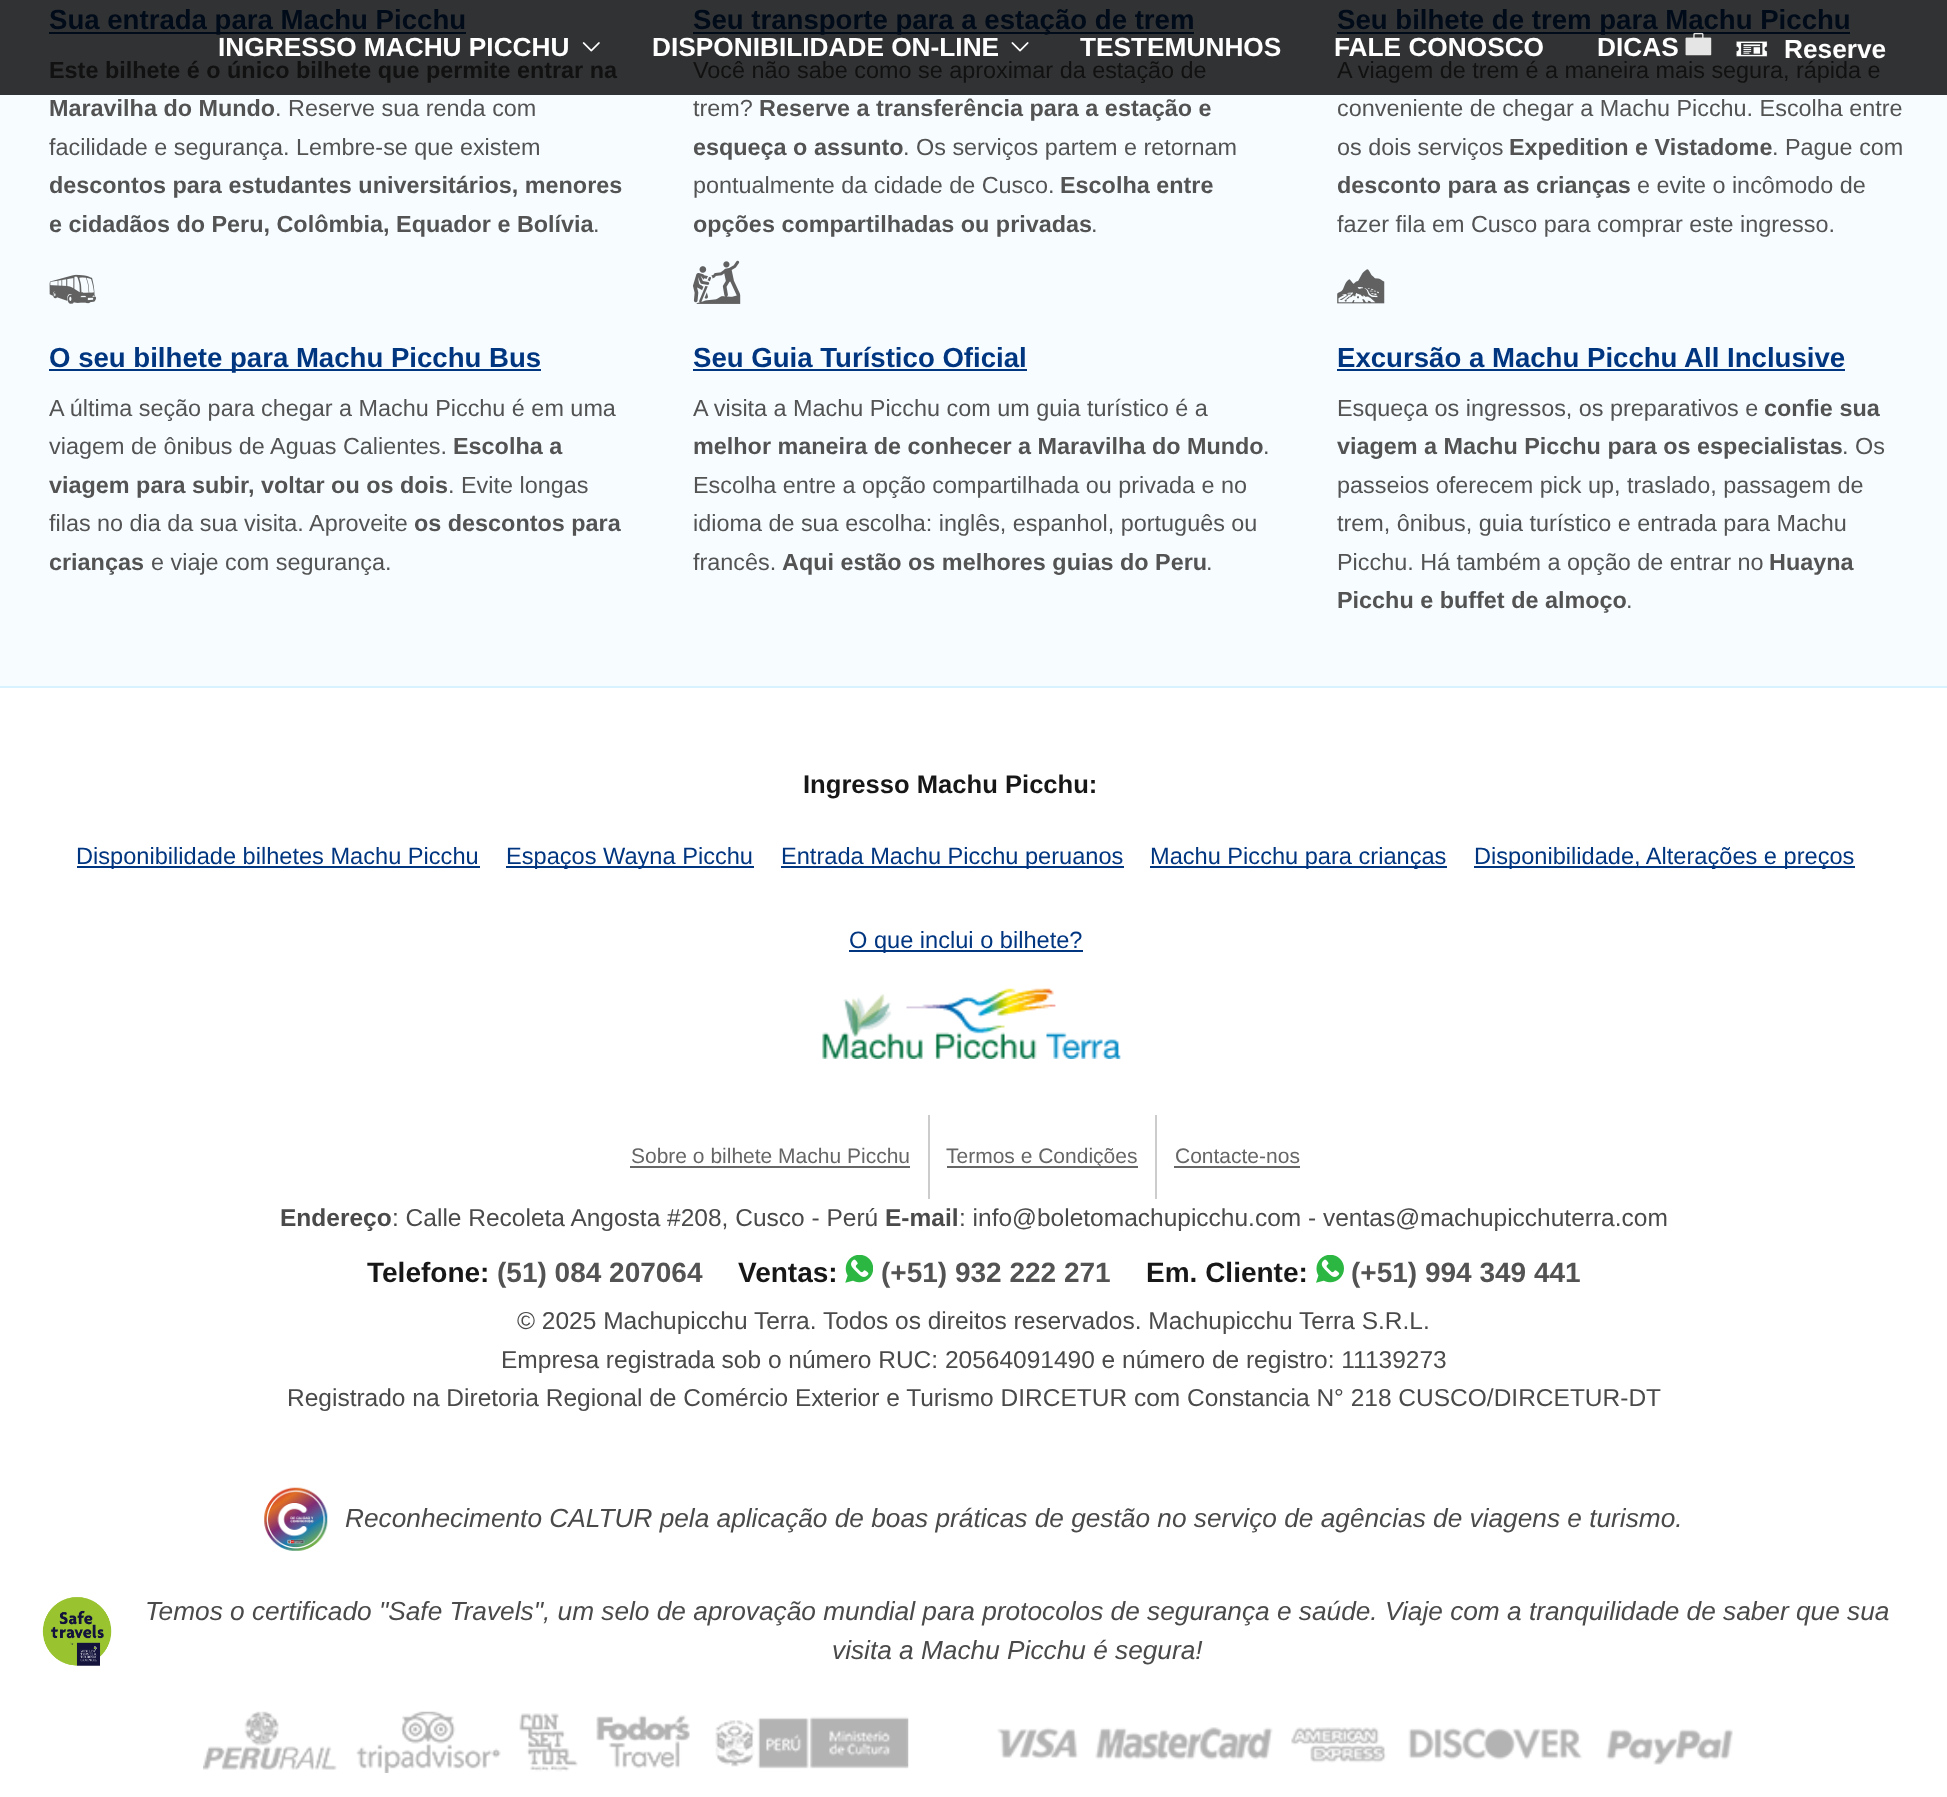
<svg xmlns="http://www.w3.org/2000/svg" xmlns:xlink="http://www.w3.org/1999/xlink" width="1947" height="1797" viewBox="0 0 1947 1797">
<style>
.cls-1{font:bold 27.6px Liberation Sans;fill:#000b1a}
.cls-2{font:bold 23.4px Liberation Sans;fill:#111111}
.cls-3{font:bold 23.4px Liberation Sans;fill:#535353}
.cls-4{font:23.4px Liberation Sans;fill:#535353}
.cls-5{font:23.4px Liberation Sans;fill:#111111}
.cls-6{font:bold 27.6px Liberation Sans;fill:#003580}
.cls-7{font:bold 26.25px Liberation Sans;fill:#ffffff}
.cls-8{font:bold 25.6px Liberation Sans;fill:#171717}
.cls-9{font:23.6px Liberation Sans;fill:#003580}
.cls-10{font:21px Liberation Sans;fill:#666666}
.cls-11{font:bold 24.5px Liberation Sans;fill:#4a4a4a}
.cls-12{font:24.5px Liberation Sans;fill:#4a4a4a}
.cls-13{font:bold 28px Liberation Sans;fill:#171717}
.cls-14{font:bold 28px Liberation Sans;fill:#535353}
.cls-15{font:italic 26.25px Liberation Sans;fill:#4a4a4a}
</style>
<rect width="100%" height="100%" fill="#ffffff"/>
<rect fill="#f6fcff" x="0" y="95" width="1947" height="591"/>
<rect fill="#313233" x="0" y="0" width="1947" height="95"/>
<rect fill="#000b1a" x="49" y="32" width="417" height="2"/>
<rect fill="#000b1a" x="693" y="32" width="501" height="2"/>
<rect fill="#000b1a" x="1337" y="32" width="513" height="2"/>
<image xlink:href="image0.png" x="49" y="274" width="48" height="30"/>
<rect fill="#003580" x="49" y="369" width="492" height="2"/>
<image xlink:href="image1.png" x="693" y="260" width="48" height="44"/>
<rect fill="#003580" x="693" y="369" width="334" height="2"/>
<image xlink:href="image2.png" x="1337" y="269" width="48" height="35"/>
<rect fill="#003580" x="1337" y="369" width="508" height="2"/>
<image xlink:href="image3.png" x="582" y="42" width="18" height="10"/>
<image xlink:href="image4.png" x="1011" y="42" width="18" height="10"/>
<image xlink:href="image6.png" x="1736" y="41" width="32" height="16"/>
<rect fill="#d8f3ff" x="0" y="686" width="1947" height="2"/>
<rect fill="#003580" x="77" y="866" width="403" height="2"/>
<rect fill="#003580" x="506" y="866" width="248" height="2"/>
<rect fill="#003580" x="781" y="866" width="343" height="2"/>
<rect fill="#003580" x="1150" y="866" width="297" height="2"/>
<rect fill="#003580" x="1474" y="866" width="381" height="2"/>
<rect fill="#003580" x="849" y="950" width="234" height="2"/>
<image xlink:href="image7.png" x="822" y="988" width="299" height="71"/>
<rect fill="#666666" x="630" y="1166" width="280" height="2"/>
<rect fill="#cccccc" x="928" y="1115" width="2" height="84"/>
<rect fill="#666666" x="947" y="1166" width="191" height="2"/>
<rect fill="#cccccc" x="1155" y="1115" width="2" height="84"/>
<rect fill="#666666" x="1174" y="1166" width="126" height="2"/>
<image xlink:href="image8.png" x="845" y="1255" width="28" height="28"/>
<image xlink:href="image9.png" x="1316" y="1255" width="28" height="28"/>
<image xlink:href="image10.png" x="264" y="1487" width="64" height="64"/>
<image xlink:href="image11.png" x="42" y="1597" width="70" height="69"/>
<image xlink:href="image12.png" x="203" y="1711" width="706" height="62"/>
<image xlink:href="image13.png" x="997" y="1727" width="736" height="38"/>
<text class="cls-1" x="49" y="29">Sua entrada para Machu Picchu</text>
<text class="cls-2" x="49" y="78">Este bilhete é o único bilhete que permite entrar na</text>
<text class="cls-3" x="49" y="116">Maravilha do Mundo</text>
<text class="cls-4" x="275" y="116">. Reserve sua renda com</text>
<text class="cls-4" x="49" y="155">facilidade e segurança. Lembre-se que existem</text>
<text class="cls-3"><tspan x="49" y="193">descontos para estudantes universitários, menores</tspan><tspan x="49" y="232">e cidadãos do Peru, Colômbia, Equador e Bolívia</tspan></text>
<text class="cls-4" x="593" y="232">.</text>
<text class="cls-1" x="693" y="29">Seu transporte para a estação de trem</text>
<text class="cls-5" x="693" y="78">Você não sabe como se aproximar da estação de</text>
<text class="cls-4" x="693" y="116">trem?</text>
<text class="cls-3" x="759" y="116">Reserve a transferência para a estação e</text>
<text class="cls-3" x="693" y="155">esqueça o assunto</text>
<text class="cls-4" x="903" y="155">. Os serviços partem e retornam</text>
<text class="cls-4" x="693" y="193">pontualmente da cidade de Cusco.</text>
<text class="cls-3" x="1060" y="193">Escolha entre</text>
<text class="cls-3" x="693" y="232">opções compartilhadas ou privadas</text>
<text class="cls-4" x="1091" y="232">.</text>
<text class="cls-1" x="1337" y="29">Seu bilhete de trem para Machu Picchu</text>
<text class="cls-5" x="1337" y="78">A viagem de trem é a maneira mais segura, rápida e</text>
<text class="cls-4"><tspan x="1337" y="116">conveniente de chegar a Machu Picchu. Escolha entre</tspan><tspan x="1337" y="155">os dois serviços</tspan></text>
<text class="cls-3" x="1509" y="155">Expedition e Vistadome</text>
<text class="cls-4" x="1772" y="155">. Pague com</text>
<text class="cls-3" x="1337" y="193">desconto para as crianças</text>
<text class="cls-4" x="1637" y="193">e evite o incômodo de</text>
<text class="cls-4" x="1337" y="232">fazer fila em Cusco para comprar este ingresso.</text>
<text class="cls-6" x="49" y="367">O seu bilhete para Machu Picchu Bus</text>
<text class="cls-4"><tspan x="49" y="416">A última seção para chegar a Machu Picchu é em uma</tspan><tspan x="49" y="454">viagem de ônibus de Aguas Calientes.</tspan></text>
<text class="cls-3" x="453" y="454">Escolha a</text>
<text class="cls-3" x="49" y="493">viagem para subir, voltar ou os dois</text>
<text class="cls-4" x="448" y="493">. Evite longas</text>
<text class="cls-4" x="49" y="531">filas no dia da sua visita. Aproveite</text>
<text class="cls-3" x="414" y="531">os descontos para</text>
<text class="cls-3" x="49" y="570">crianças</text>
<text class="cls-4" x="151" y="570">e viaje com segurança.</text>
<text class="cls-6" x="693" y="367">Seu Guia Turístico Oficial</text>
<text class="cls-4" x="693" y="416">A visita a Machu Picchu com um guia turístico é a</text>
<text class="cls-3" x="693" y="454">melhor maneira de conhecer a Maravilha do Mundo</text>
<text class="cls-4" x="1263" y="454">.</text>
<text class="cls-4"><tspan x="693" y="493">Escolha entre a opção compartilhada ou privada e no</tspan><tspan x="693" y="531">idioma de sua escolha: inglês, espanhol, português ou</tspan><tspan x="693" y="570">francês.</tspan></text>
<text class="cls-3" x="782" y="570">Aqui estão os melhores guias do Peru</text>
<text class="cls-4" x="1206" y="570">.</text>
<text class="cls-6" x="1337" y="367">Excursão a Machu Picchu All Inclusive</text>
<text class="cls-4" x="1337" y="416">Esqueça os ingressos, os preparativos e</text>
<text class="cls-3" x="1764" y="416">confie sua</text>
<text class="cls-3" x="1337" y="454">viagem a Machu Picchu para os especialistas</text>
<text class="cls-4" x="1842" y="454">. Os</text>
<text class="cls-4"><tspan x="1337" y="493">passeios oferecem pick up, traslado, passagem de</tspan><tspan x="1337" y="531">trem, ônibus, guia turístico e entrada para Machu</tspan><tspan x="1337" y="570">Picchu. Há também a opção de entrar no</tspan></text>
<text class="cls-3" x="1769" y="570">Huayna</text>
<text class="cls-3" x="1337" y="608">Picchu e buffet de almoço</text>
<text class="cls-4" x="1626" y="608">.</text>
<text class="cls-7" x="218" y="56">INGRESSO MACHU PICCHU</text>
<text class="cls-7" x="652" y="56">DISPONIBILIDADE ON-LINE</text>
<text class="cls-7" x="1080" y="56">TESTEMUNHOS</text>
<text class="cls-7" x="1334" y="56">FALE CONOSCO</text>
<text class="cls-7" x="1597" y="56">DICAS</text>
<image xlink:href="image5.png" x="1685" y="32" width="27" height="24"/>
<text class="cls-7" x="1784" y="58">Reserve</text>
<text class="cls-8" x="803" y="793">Ingresso Machu Picchu:</text>
<text class="cls-9" x="76" y="864">Disponibilidade bilhetes Machu Picchu</text>
<text class="cls-9" x="506" y="864">Espaços Wayna Picchu</text>
<text class="cls-9" x="781" y="864">Entrada Machu Picchu peruanos</text>
<text class="cls-9" x="1150" y="864">Machu Picchu para crianças</text>
<text class="cls-9" x="1474" y="864">Disponibilidade, Alterações e preços</text>
<text class="cls-9" x="849" y="948">O que inclui o bilhete?</text>
<text class="cls-10" x="631" y="1163">Sobre o bilhete Machu Picchu</text>
<text class="cls-10" x="946" y="1163">Termos e Condições</text>
<text class="cls-10" x="1175" y="1163">Contacte-nos</text>
<text class="cls-11" x="280" y="1226">Endereço</text>
<text class="cls-12" x="392" y="1226">: Calle Recoleta Angosta #208, Cusco - Perú</text>
<text class="cls-11" x="885" y="1226">E-mail</text>
<text class="cls-12" x="959" y="1226">: info@boletomachupicchu.com - ventas@machupicchuterra.com</text>
<text class="cls-13" x="367" y="1282">Telefone:</text>
<text class="cls-14" x="497" y="1282">(51) 084 207064</text>
<text class="cls-13" x="738" y="1282">Ventas:</text>
<text class="cls-14" x="881" y="1282">(+51) 932 222 271</text>
<text class="cls-13" x="1146" y="1282">Em. Cliente:</text>
<text class="cls-14" x="1351" y="1282">(+51) 994 349 441</text>
<text class="cls-12" x="517" y="1329">© 2025 Machupicchu Terra. Todos os direitos reservados. Machupicchu Terra S.R.L.</text>
<text class="cls-12" x="501" y="1368">Empresa registrada sob o número RUC: 20564091490 e número de registro: 11139273</text>
<text class="cls-12" x="287" y="1406">Registrado na Diretoria Regional de Comércio Exterior e Turismo DIRCETUR com Constancia N° 218 CUSCO/DIRCETUR-DT</text>
<text class="cls-15" x="345" y="1527">Reconhecimento CALTUR pela aplicação de boas práticas de gestão no serviço de agências de viagens e turismo.</text>
<text class="cls-15" x="145" y="1620">Temos o certificado "Safe Travels", um selo de aprovação mundial para protocolos de segurança e saúde. Viaje com a tranquilidade de saber que sua</text>
<text class="cls-15" x="832" y="1659">visita a Machu Picchu é segura!</text>
</svg>
